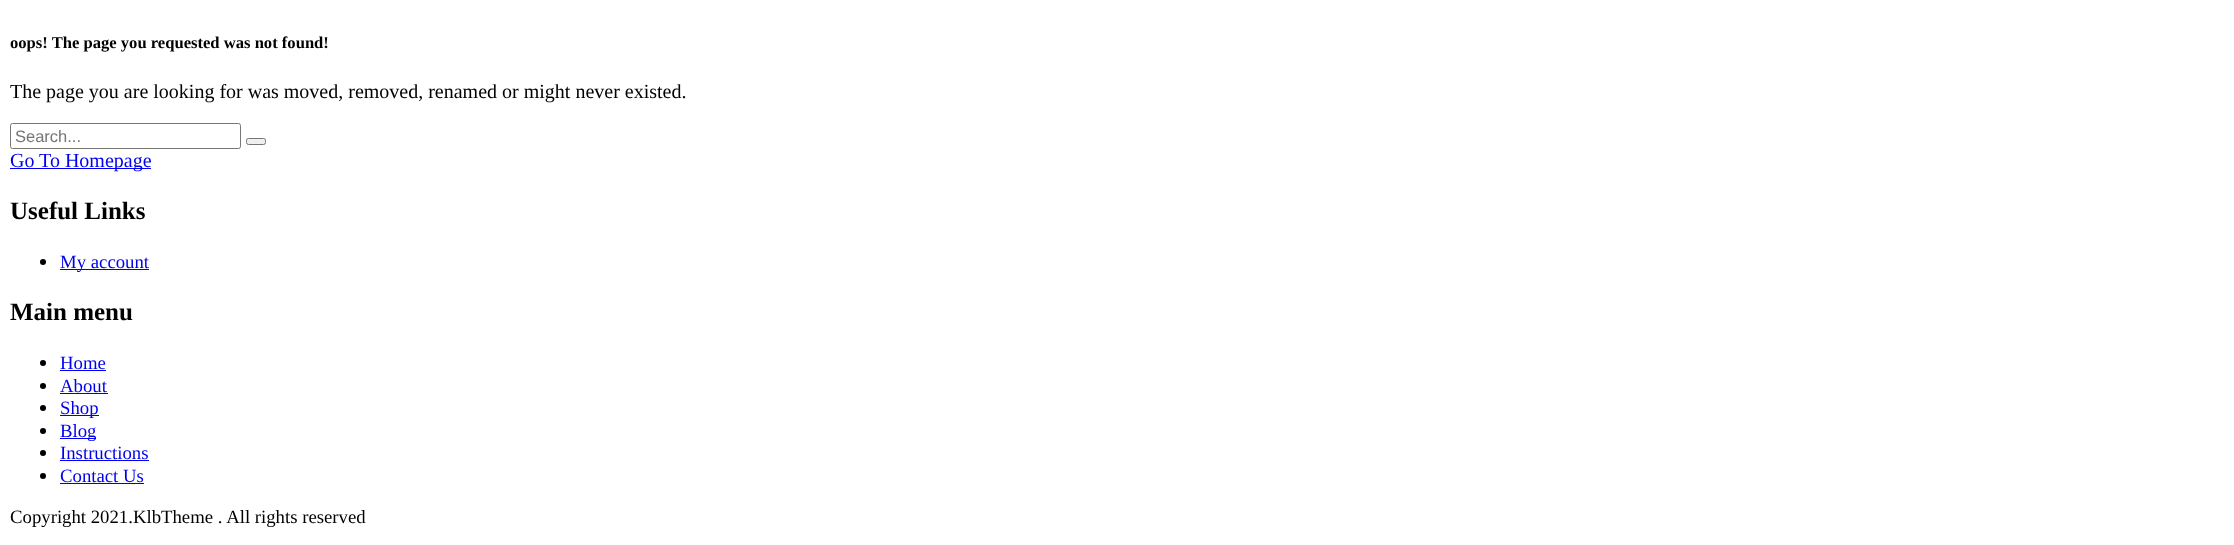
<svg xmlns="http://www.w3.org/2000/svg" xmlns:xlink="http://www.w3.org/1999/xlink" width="2234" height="545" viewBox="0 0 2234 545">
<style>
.cls-1{font:bold 16.6px Liberation Serif;fill:#000000}
.cls-2{font:20px Liberation Serif;fill:#000000}
.cls-3{font:16.5px Liberation Sans;fill:#757575}
.cls-4{font:20px Liberation Serif;fill:#0000ee}
.cls-5{font:bold 25px Liberation Serif;fill:#000000}
.cls-6{font:18.75px Liberation Serif;fill:#0000ee}
.cls-7{font:18.75px Liberation Serif;fill:#000000}
</style>
<rect width="100%" height="100%" fill="#ffffff"/>
<rect fill="none" stroke="#767676" x="10.5" y="123.5" width="230" height="25" rx="2"/>
<rect fill="#efefef" stroke="#767676" x="246.5" y="138.5" width="19" height="6" rx="2"/>
<rect fill="#0000ee" x="10" y="168" width="141" height="1"/>
<circle fill="#000000" cx="43" cy="262" r="3"/>
<rect fill="#0000ee" x="60" y="269" width="89" height="1"/>
<circle fill="#000000" cx="43" cy="363" r="3"/>
<rect fill="#0000ee" x="60" y="370" width="46" height="1"/>
<circle fill="#000000" cx="43" cy="386" r="3"/>
<rect fill="#0000ee" x="60" y="393" width="48" height="1"/>
<circle fill="#000000" cx="43" cy="408" r="3"/>
<rect fill="#0000ee" x="60" y="415" width="39" height="1"/>
<circle fill="#000000" cx="43" cy="431" r="3"/>
<rect fill="#0000ee" x="60" y="438" width="36" height="1"/>
<circle fill="#000000" cx="43" cy="453" r="3"/>
<rect fill="#0000ee" x="60" y="460" width="89" height="1"/>
<circle fill="#000000" cx="43" cy="476" r="3"/>
<rect fill="#0000ee" x="60" y="483" width="84" height="1"/>
<text class="cls-1" x="10" y="48">oops! The page you requested was not found!</text>
<text class="cls-2" x="10" y="98">The page you are looking for was moved, removed, renamed or might never existed.</text>
<text class="cls-3" x="15" y="142">Search...</text>
<text class="cls-4" x="10" y="167">Go To Homepage</text>
<text class="cls-5" x="10" y="219">Useful Links</text>
<text class="cls-6" x="60" y="268">My account</text>
<text class="cls-5" x="10" y="320">Main menu</text>
<text class="cls-6"><tspan x="60" y="369">Home</tspan><tspan x="60" y="392">About</tspan><tspan x="60" y="414">Shop</tspan><tspan x="60" y="437">Blog</tspan><tspan x="60" y="459">Instructions</tspan><tspan x="60" y="482">Contact Us</tspan></text>
<text class="cls-7" x="10" y="523">Copyright 2021.KlbTheme . All rights reserved</text>
</svg>
